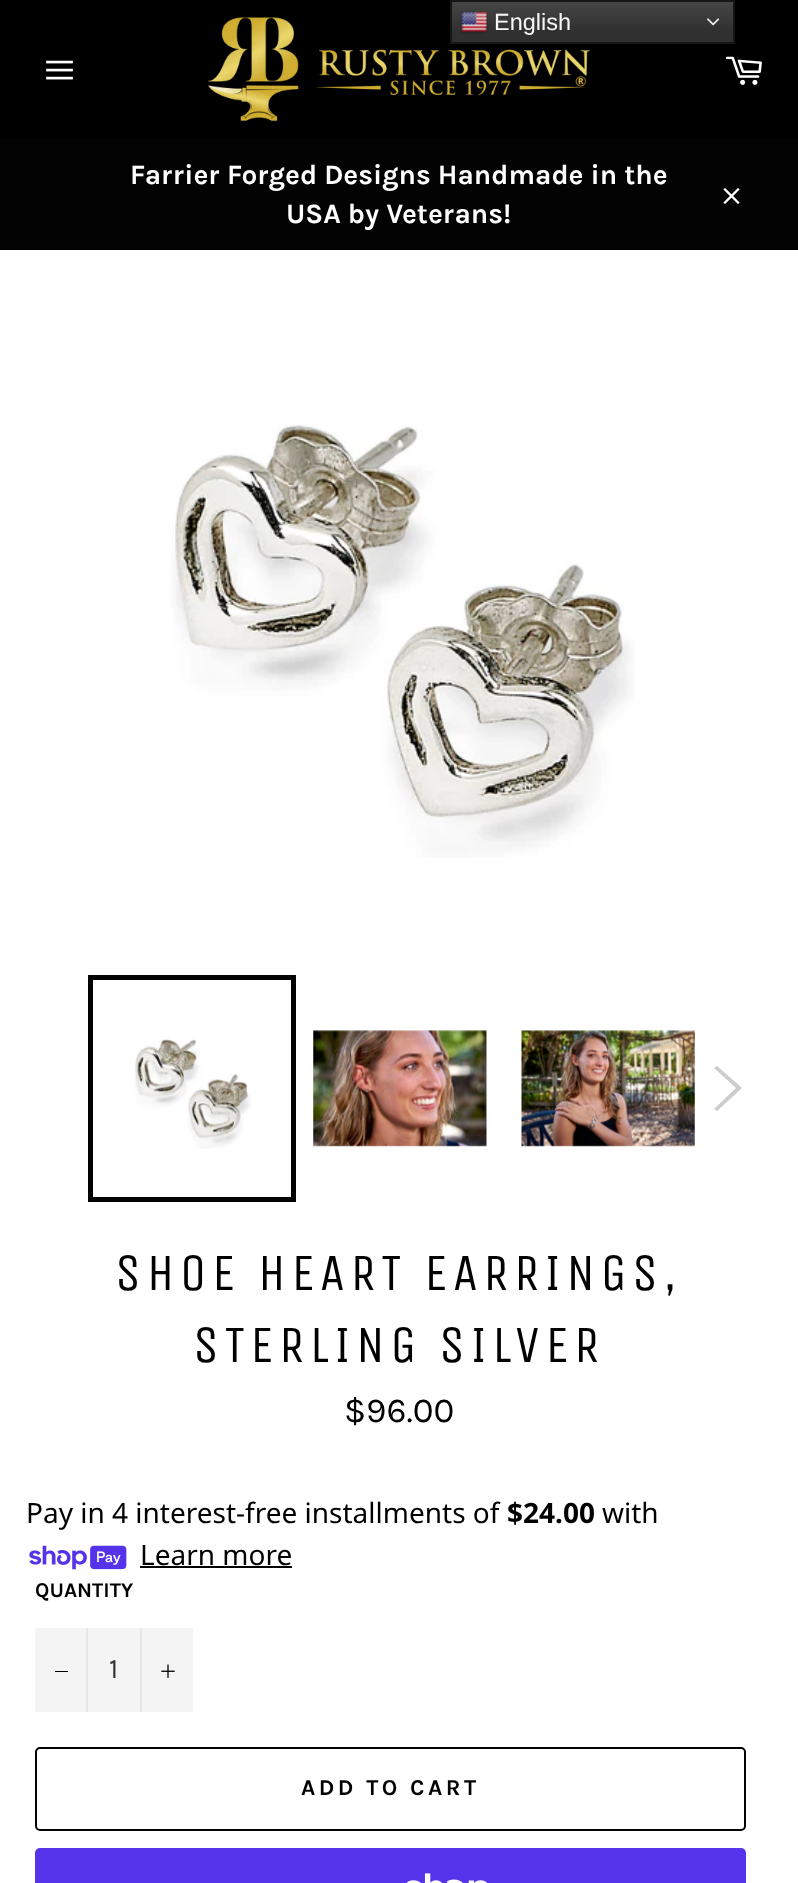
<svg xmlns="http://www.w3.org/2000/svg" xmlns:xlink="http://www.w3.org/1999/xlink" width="798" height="1883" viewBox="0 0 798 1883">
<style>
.cls-1{font:23.5px Liberation Sans;fill:#f7f7f7}
.cls-2{font:bold 28px Karla;fill:#ffffff}
.cls-3{font:52.5px Unica One;letter-spacing:5.25px;fill:#000000}
.cls-4{font:35px Karla;fill:#000000}
.cls-5{font:28px Noto Sans;fill:#000000}
.cls-6{font:bold 28px Noto Sans;fill:#000000}
.cls-7{font:bold 21px Karla;fill:#000000}
.cls-8{font:28px Karla;fill:#333333}
.cls-9{font:bold 22.75px Karla;letter-spacing:3.5px;fill:#000000}
</style>
<defs>
<linearGradient id="g1" gradientUnits="userSpaceOnUse" x1="592" y1="0" x2="592" y2="44"><stop offset="0" stop-color="#474747"/><stop offset="0.7" stop-color="#303030"/></linearGradient>
</defs>
<rect width="100%" height="100%" fill="#ffffff"/>
<rect fill="#000000" x="0" y="0" width="798" height="138"/>
<image xlink:href="image3.png" x="208" y="17" width="382" height="104"/>
<rect fill="url(#g1)" x="452" y="2" width="281" height="40"/>
<rect fill="none" stroke="#161616" stroke-width="2" x="451" y="1" width="283" height="42"/>
<image xlink:href="image0.png" x="460" y="11" width="28" height="23"/>
<image xlink:href="image1.png" x="707" y="18" width="12" height="8"/>
<image xlink:href="image2.png" x="46" y="60" width="27" height="20"/>
<image xlink:href="image4.png" x="726" y="56" width="36" height="29"/>
<rect fill="#030303" x="0" y="138" width="798" height="112"/>
<image xlink:href="image5.png" x="723" y="188" width="17" height="16"/>
<image xlink:href="image6.png" x="171" y="424" width="464" height="434"/>
<image xlink:href="image7.png" x="134" y="1039" width="117" height="110"/>
<rect fill="none" stroke="#030303" stroke-width="5" x="90.5" y="977.5" width="203" height="222"/>
<image xlink:href="image8.png" x="313" y="1030" width="174" height="117"/>
<image xlink:href="image9.png" x="521" y="1030" width="174" height="117"/>
<path fill="#cccccc" d="M714 1068L717 1066L742 1088L717 1111L714 1109L736 1088Z"/>
<image xlink:href="image10.png" x="29" y="1545" width="98" height="25"/>
<rect fill="#000000" x="140" y="1566" width="152" height="2"/>
<rect fill="#f4f4f4" x="35" y="1628" width="158" height="84"/>
<rect fill="#e7e7e7" x="86" y="1628" width="2" height="84"/>
<rect fill="#000000" x="55" y="1671" width="13" height="1"/>
<rect fill="#e7e7e7" x="140" y="1628" width="2" height="84"/>
<image xlink:href="image11.png" x="161" y="1664" width="14" height="14"/>
<rect fill="none" stroke="#030303" stroke-width="2" x="36" y="1748" width="709" height="82" rx="4"/>
<rect fill="#5433eb" x="35" y="1848" width="711" height="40" rx="5"/>
<image xlink:href="image12.png" x="406" y="1873" width="82" height="10"/>
<text class="cls-1" x="494" y="30">English</text>
<text class="cls-2" x="130" y="184">Farrier Forged Designs Handmade in the</text>
<text class="cls-2" x="286" y="223">USA by Veterans!</text>
<text class="cls-3" x="115" y="1290">SHOE HEART EARRINGS,</text>
<text class="cls-3" x="193" y="1362">STERLING SILVER</text>
<text class="cls-4" x="344" y="1422">$96.00</text>
<text class="cls-5" x="26" y="1523">Pay in 4 interest-free installments of</text>
<text class="cls-6" x="507" y="1523">$24.00</text>
<text class="cls-5" x="602" y="1523">with</text>
<text class="cls-5" x="140" y="1565">Learn more</text>
<text class="cls-7" x="35" y="1597">QUANTITY</text>
<text class="cls-8" x="109" y="1678">1</text>
<text class="cls-9" x="301" y="1795">ADD TO CART</text>
</svg>
